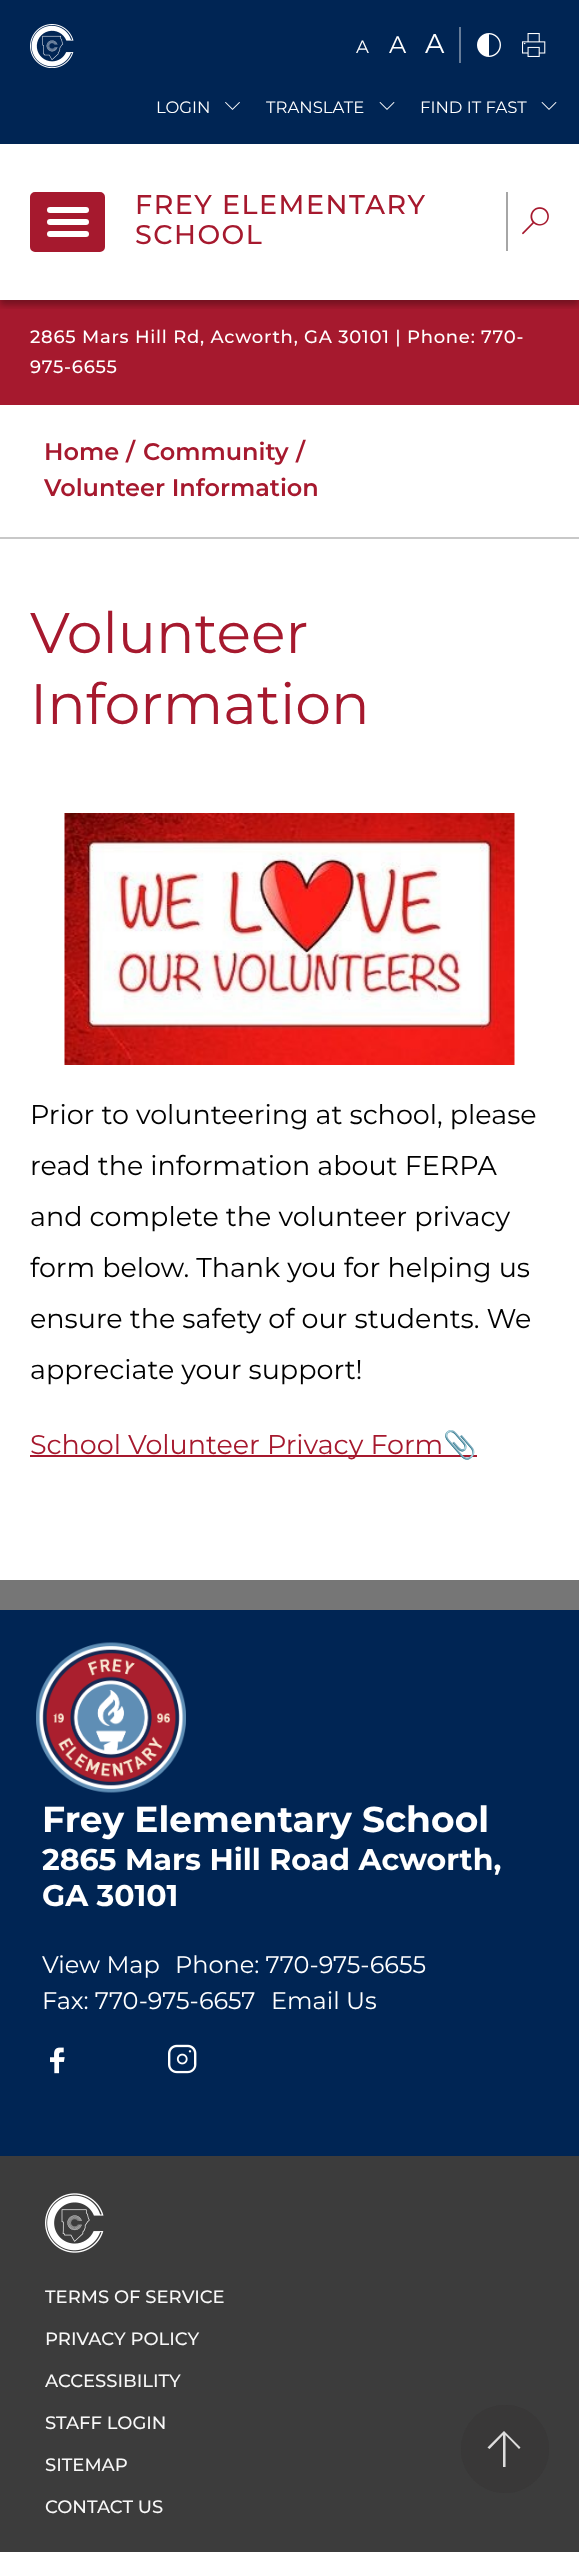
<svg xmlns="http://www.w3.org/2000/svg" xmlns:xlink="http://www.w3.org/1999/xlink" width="579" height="2552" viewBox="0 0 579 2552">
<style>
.cls-1{font:18px Montserrat;fill:#ffffff}
.cls-2{font:24px Montserrat;fill:#ffffff}
.cls-3{font:27px Montserrat;fill:#ffffff}
.cls-4{font:16.5px Montserrat;fill:#ffffff}
.cls-5{font:500 27px Montserrat;letter-spacing:1.5px;fill:#a6192e}
.cls-6{font:500 18px Montserrat;letter-spacing:0.75px;fill:#ffffff}
.cls-7{font:600 24px Montserrat;fill:#a6192e}
.cls-8{font:57px Montserrat;fill:#a6192e}
.cls-9{font:27px Montserrat;fill:#000000}
.cls-10{font:27px Montserrat;fill:#a6192e}
.cls-11{font:27px Noto Color Emoji;fill:#a6192e}
.cls-12{font:bold 36px Montserrat;fill:#ffffff}
.cls-13{font:bold 30px Montserrat;fill:#ffffff}
.cls-14{font:500 18px Montserrat;fill:#f8f8f8}
</style>
<defs>
<clipPath id="clip1"><rect x="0" y="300" width="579" height="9"/></clipPath>
</defs>
<rect width="100%" height="100%" fill="#767676"/>
<rect fill="#002554" x="0" y="0" width="579" height="144"/>
<image xlink:href="image0.png" x="30" y="24" width="44" height="44"/>
<rect fill="#667c98" x="459" y="27" width="2" height="36"/>
<image xlink:href="image1.png" x="477" y="33" width="24" height="24"/>
<image xlink:href="image2.png" x="522" y="33" width="24" height="24"/>
<image xlink:href="image3.png" x="225" y="102" width="15" height="8"/>
<image xlink:href="image4.png" x="379" y="102" width="16" height="8"/>
<image xlink:href="image4.png" x="541" y="102" width="16" height="8"/>
<rect fill="#ffffff" x="0" y="144" width="579" height="1436"/>
<rect fill="#a6192e" x="0" y="300" width="579" height="105"/>
<g clip-path="url(#clip1)">
<rect fill="#000000" fill-opacity="0.3" filter="blur(3px)" x="0" y="149" width="579" height="156"/>
</g>
<rect fill="#a6192e" stroke="#a6192e" stroke-width="2" x="31" y="193" width="73" height="58" rx="4"/>
<rect fill="#ffffff" x="47" y="207" width="42" height="6" rx="3"/>
<rect fill="#ffffff" x="47" y="219" width="42" height="6" rx="3"/>
<rect fill="#ffffff" x="47" y="231" width="42" height="6" rx="3"/>
<rect fill="#a6a6a6" x="506" y="192" width="2" height="59"/>
<image xlink:href="image5.png" x="522" y="207" width="27" height="28"/>
<rect fill="#c8c8c8" x="0" y="537" width="579" height="2"/>
<image xlink:href="image6.png" x="64" y="813" width="451" height="252"/>
<rect fill="#a6192e" x="30" y="1455" width="447" height="2"/>
<rect fill="#002554" x="0" y="1610" width="579" height="546"/>
<image xlink:href="image7.png" x="36" y="1642" width="150" height="151"/>
<image xlink:href="image8.png" x="50" y="2047" width="15" height="27"/>
<image xlink:href="image9.png" x="168" y="2044" width="29" height="30"/>
<rect fill="#3c3c3c" x="0" y="2156" width="579" height="396"/>
<image xlink:href="image10.png" x="45" y="2193" width="59" height="60"/>
<circle fill="#3a3939" cx="505" cy="2449" r="44"/>
<path fill="#d8d8d8" d="M504 2431L520.5 2447.5L519 2449L505.5 2435V2467H503V2435L489.5 2449L487.5 2447.5Z"/>
<circle fill="#393838" fill-opacity="0.8" cx="505" cy="2449" r="44"/>
<path fill="#ffffff" fill-opacity="0.8" d="M504 2431L520.5 2447.5L519 2449L505.5 2435V2467H503V2435L489.5 2449L487.5 2447.5Z"/>
<text class="cls-1" x="356" y="53">A</text>
<text class="cls-2" x="389" y="53">A</text>
<text class="cls-3" x="425" y="53">A</text>
<text class="cls-4" x="156" y="113">LOGIN</text>
<text class="cls-4" x="266" y="113">TRANSLATE</text>
<text class="cls-4" x="420" y="113">FIND IT FAST</text>
<text class="cls-5"><tspan x="135" y="214">FREY ELEMENTARY</tspan><tspan x="135" y="244">SCHOOL</tspan></text>
<text class="cls-6"><tspan x="30" y="343">2865 Mars Hill Rd, Acworth, GA 30101 | Phone: 770-</tspan><tspan x="30" y="373">975-6655</tspan></text>
<text class="cls-7" x="44" y="460">Home</text>
<text class="cls-7" x="126" y="460">/</text>
<text class="cls-7" x="143" y="460">Community</text>
<text class="cls-7" x="296" y="460">/</text>
<text class="cls-7" x="44" y="496">Volunteer Information</text>
<text class="cls-8"><tspan x="30" y="653">Volunteer</tspan><tspan x="30" y="724">Information</tspan></text>
<text class="cls-9"><tspan x="30" y="1124">Prior to volunteering at school, please</tspan><tspan x="30" y="1175">read the information about FERPA</tspan><tspan x="30" y="1226">and complete the volunteer privacy</tspan><tspan x="30" y="1277">form below. Thank you for helping us</tspan><tspan x="30" y="1328">ensure the safety of our students. We</tspan><tspan x="30" y="1379">appreciate your support!</tspan></text>
<text class="cls-10" x="30" y="1454">School Volunteer Privacy Form</text>
<text class="cls-11" x="443" y="1454">📎</text>
<text class="cls-12" x="42" y="1832">Frey Elementary School</text>
<text class="cls-13"><tspan x="42" y="1870">2865 Mars Hill Road Acworth,</tspan><tspan x="42" y="1906">GA 30101</tspan></text>
<text class="cls-2" x="42" y="1973">View Map</text>
<text class="cls-2" x="175" y="1973">Phone: 770-975-6655</text>
<text class="cls-2" x="42" y="2009">Fax: 770-975-6657</text>
<text class="cls-2" x="271" y="2009">Email Us</text>
<text class="cls-14" x="45" y="2303">TERMS OF SERVICE</text>
<text class="cls-14" x="45" y="2345">PRIVACY POLICY</text>
<text class="cls-14" x="45" y="2387">ACCESSIBILITY</text>
<text class="cls-14" x="45" y="2429">STAFF LOGIN</text>
<text class="cls-14" x="45" y="2471">SITEMAP</text>
<text class="cls-14" x="45" y="2513">CONTACT US</text>
</svg>
